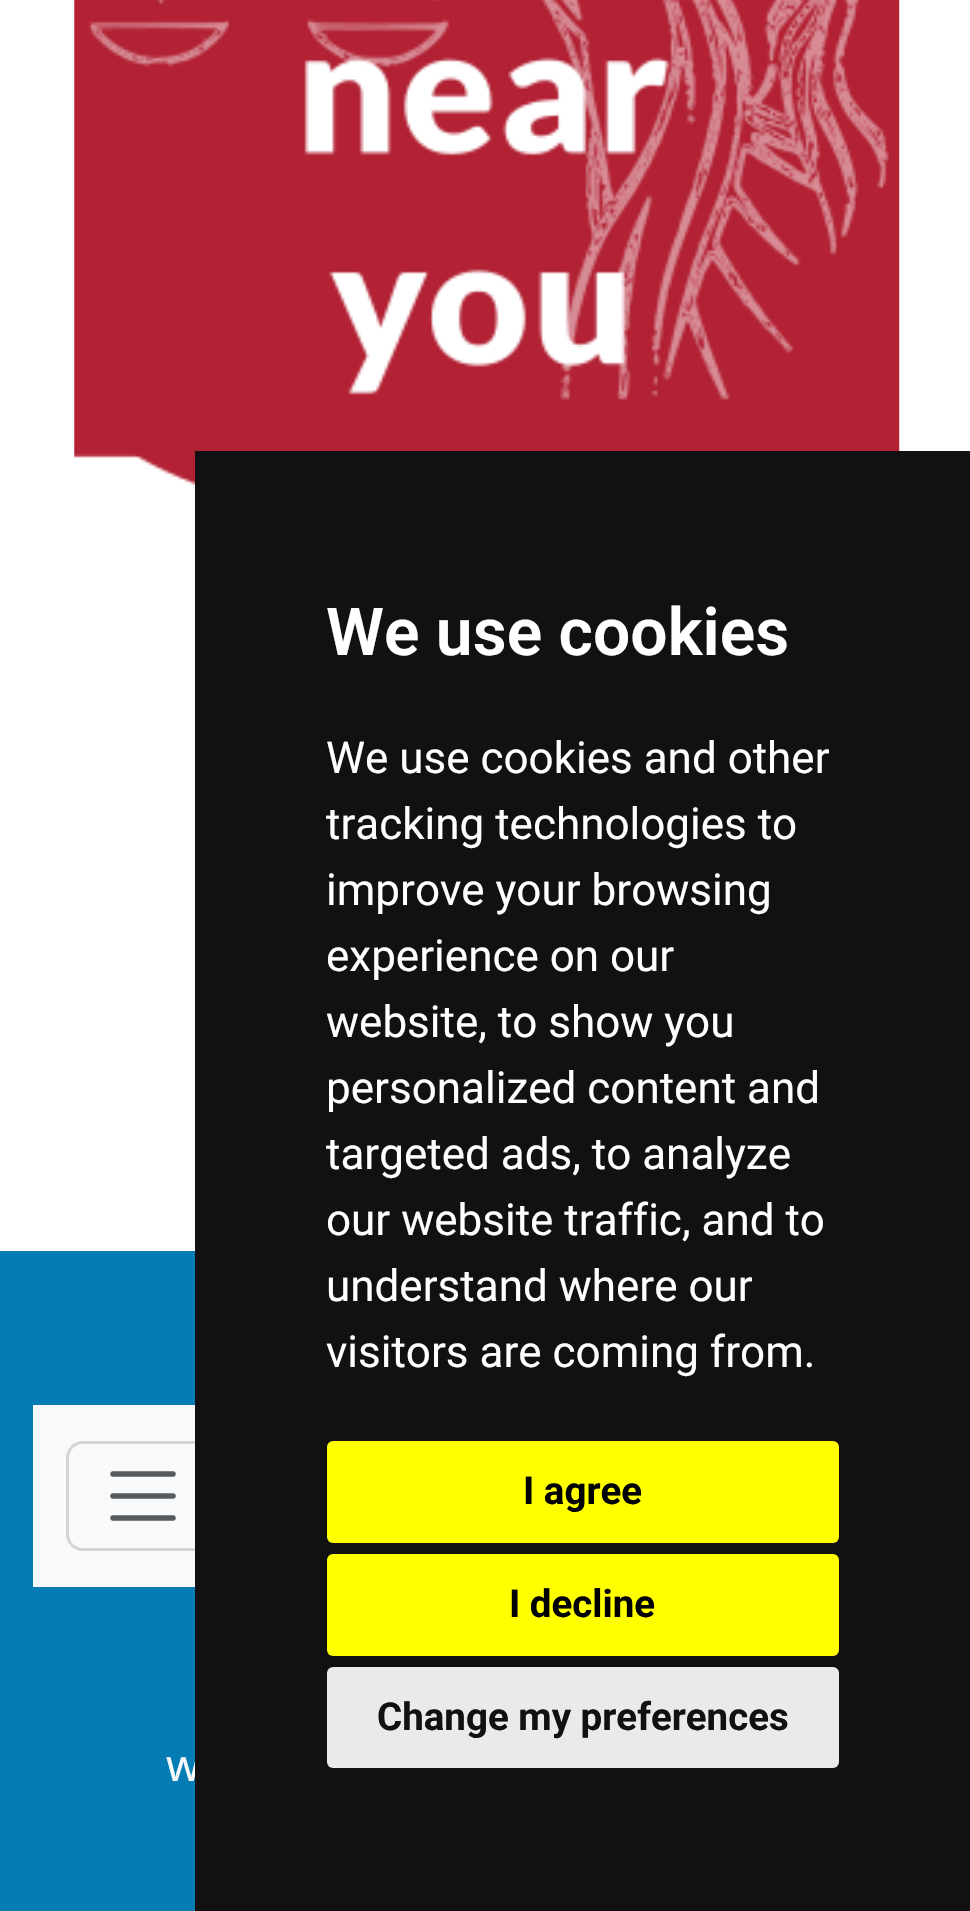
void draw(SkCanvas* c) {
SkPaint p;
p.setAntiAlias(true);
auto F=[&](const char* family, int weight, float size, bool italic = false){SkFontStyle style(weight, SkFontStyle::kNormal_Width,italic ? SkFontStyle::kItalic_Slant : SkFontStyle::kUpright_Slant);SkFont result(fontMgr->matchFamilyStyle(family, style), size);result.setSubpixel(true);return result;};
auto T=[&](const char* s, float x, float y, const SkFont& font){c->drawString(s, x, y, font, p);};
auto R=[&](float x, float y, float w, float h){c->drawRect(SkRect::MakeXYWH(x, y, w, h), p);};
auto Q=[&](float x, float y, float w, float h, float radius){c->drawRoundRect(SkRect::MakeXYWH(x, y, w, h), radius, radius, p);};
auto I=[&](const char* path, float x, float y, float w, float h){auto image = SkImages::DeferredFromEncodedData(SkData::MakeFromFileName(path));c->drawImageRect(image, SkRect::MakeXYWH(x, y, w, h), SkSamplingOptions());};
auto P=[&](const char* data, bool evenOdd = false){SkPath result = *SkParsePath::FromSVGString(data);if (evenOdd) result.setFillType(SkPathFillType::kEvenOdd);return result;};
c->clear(0xffffffff);
I("1.png",74,0,826,486);
p.setColor(0xff067cb4);
R(0,1251,195,660);
p.setColor(0xfff8f9fa);
R(33,1405,162,182);
p.setStroke(true);
p.setStrokeWidth(3);
p.setColor(0xffd3d4d5);
c->drawRoundRect(SkRect::MakeXYWH(67.5,1442.5,151,107),15.5,15.5,p);
auto f1 = F("Noto Sans",400,44);
p.setStroke(false);
p.setColor(0xfff8f9fa);
T("w",166,1781,f1);
p.setColor(0xff111111);
R(195,451,775,1460);
auto f2 = F("Roboto",600,66);
p.setColor(0xffffffff);
T("We use cookies",326,655,f2);
auto f3 = F("Roboto",400,44);
T("We use cookies and other",326,773,f3);
T("tracking technologies to",326,839,f3);
T("improve your browsing",326,905,f3);
T("experience on our",326,971,f3);
T("website, to show you",326,1037,f3);
T("personalized content and",326,1103,f3);
T("targeted ads, to analyze",326,1169,f3);
T("our website traffic, and to",326,1235,f3);
T("understand where our",326,1301,f3);
T("visitors are coming from.",326,1367,f3);
p.setColor(0xffffff00);
Q(327,1441,512,102,6);
auto f4 = F("Roboto",700,38.5);
p.setColor(0xff000000);
T("I agree",523,1504,f4);
p.setColor(0xffffff00);
Q(327,1554,512,102,6);
p.setColor(0xff000000);
T("I decline",509,1617,f4);
p.setColor(0xffeaeaea);
Q(327,1667,512,101,6);
p.setColor(0xff111111);
T("Change my preferences",377,1730,f4);
p.setStroke(true);
p.setStrokeWidth(5.5);
p.setStrokeCap(SkPaint::kRound_Cap);
p.setColor(0xff575a5d);
c->drawPath(P("M113 1474h60m-60 22h60m-60 22h60"),p);
}
